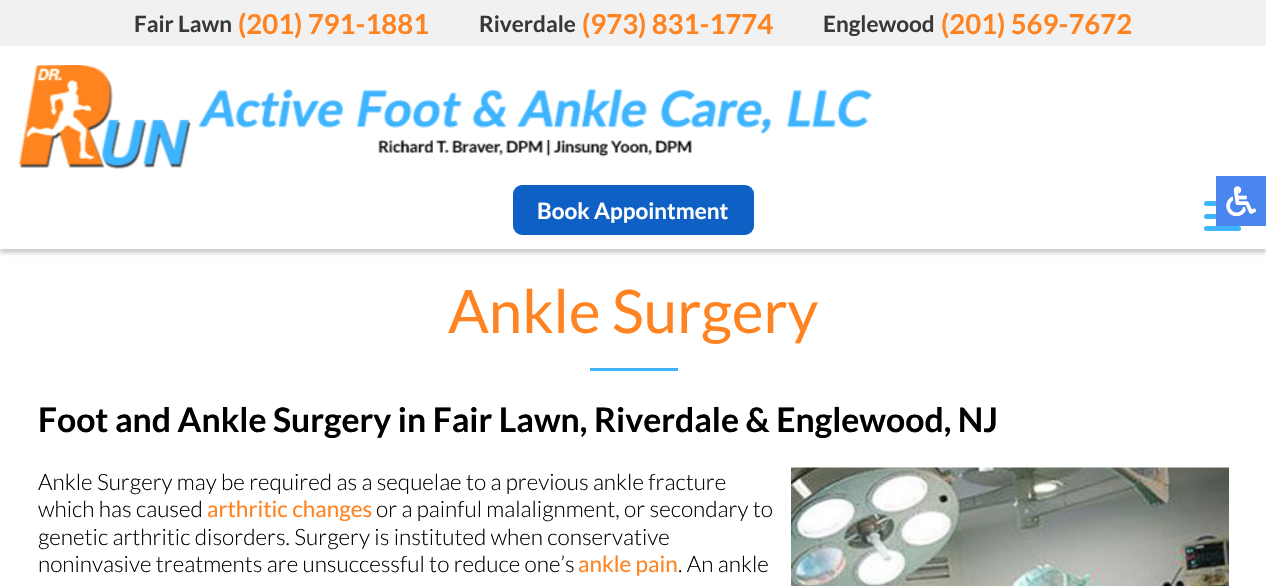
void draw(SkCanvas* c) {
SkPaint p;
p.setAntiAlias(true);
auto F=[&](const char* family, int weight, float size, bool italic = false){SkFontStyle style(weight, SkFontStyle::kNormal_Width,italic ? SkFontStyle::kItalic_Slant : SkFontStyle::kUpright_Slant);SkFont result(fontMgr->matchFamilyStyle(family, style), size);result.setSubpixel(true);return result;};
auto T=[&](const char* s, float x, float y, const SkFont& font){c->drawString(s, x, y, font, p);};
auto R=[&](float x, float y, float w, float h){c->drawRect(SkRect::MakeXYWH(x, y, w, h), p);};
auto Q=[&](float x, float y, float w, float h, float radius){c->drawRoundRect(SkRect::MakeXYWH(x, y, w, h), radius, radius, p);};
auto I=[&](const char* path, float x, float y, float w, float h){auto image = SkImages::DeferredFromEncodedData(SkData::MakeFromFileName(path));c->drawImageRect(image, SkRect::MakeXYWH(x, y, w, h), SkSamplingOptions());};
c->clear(0xffffffff);
p.setColor(0x33000000);
p.setMaskFilter(SkMaskFilter::MakeBlur(kNormal_SkBlurStyle, 2));
c->drawRect(SkRect::MakeXYWH(0,4,1266,249),p);
p.setMaskFilter(nullptr);
p.setColor(0xffffffff);
R(0,46,1266,203);
p.setColor(0xfff1f1f1);
R(0,0,1266,46);
auto f1 = F("Lato",700,22.5);
p.setColor(0xff383838);
T("Fair Lawn",134,32,f1);
auto f2 = F("Lato",700,27.5);
p.setColor(0xffff8320);
T("(201) 791-1881",238,34,f2);
p.setColor(0xff383838);
T("Riverdale",479,32,f1);
p.setColor(0xffff8320);
T("(973) 831-1774",582,34,f2);
p.setColor(0xff383838);
T("Englewood",823,32,f1);
p.setColor(0xffff8320);
T("(201) 569-7672",941,34,f2);
I("1.png",19,65,172,104);
I("2.png",198,88,674,69);
p.setColor(0xff0f60c5);
c->drawRoundRect(SkRect::MakeXYWH(514.5,186.5,238,47),7.5,7.5,p);
p.setStroke(true);
p.setStrokeWidth(3);
c->drawRoundRect(SkRect::MakeXYWH(514.5,186.5,238,47),7.5,7.5,p);
p.setStroke(false);
p.setColor(0xffffffff);
T("Book Appointment",537,219,f1);
p.setColor(0xff3eb4ff);
Q(1204,201,37,5,2.5);
Q(1204,214,37,5,2.5);
Q(1204,226,37,5,2.5);
p.setColor(0xff4885ed);
R(1216,176,50,50);
I("3.png",1226,186,30,30);
auto f3 = F("Lato",400,60);
p.setColor(0xffff8320);
T("Ankle Surgery",448,333,f3);
p.setColor(0xff3eb4ff);
R(590,368,88,3);
auto f4 = F("Lato",700,33.75);
p.setColor(0xff000000);
T("Foot and Ankle Surgery in Fair Lawn, Riverdale & Englewood, NJ",38,432,f4);
auto f5 = F("Lato",300,22.5);
T("Ankle Surgery may be required as a sequelae to a previous ankle fracture",38,490,f5);
I("4.png",791,467,438,119);
T("which has caused",38,517,f5);
auto f6 = F("Lato",400,22.5);
p.setColor(0xffff8320);
T("arthritic changes",207,517,f6);
p.setColor(0xff000000);
T("or a painful malalignment, or secondary to",376,517,f5);
T("genetic arthritic disorders. Surgery is instituted when conservative",38,545,f5);
T("noninvasive treatments are unsuccessful to reduce one’s",38,572,f5);
p.setColor(0xffff8320);
T("ankle pain",578,572,f6);
p.setColor(0xff000000);
T(". An ankle",678,572,f5);
}
